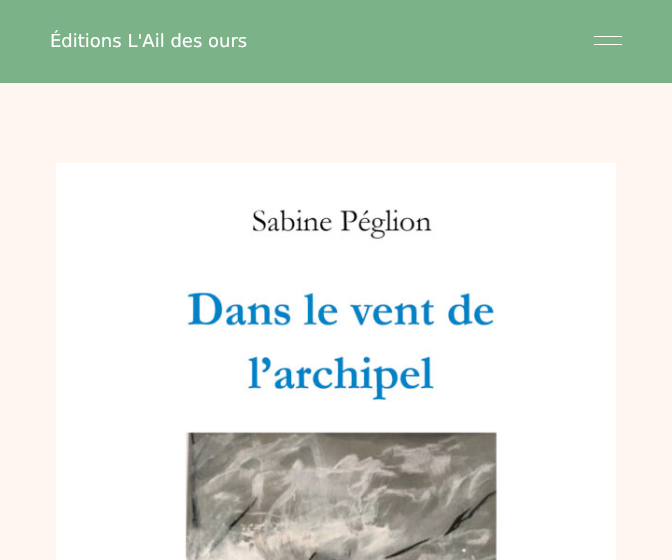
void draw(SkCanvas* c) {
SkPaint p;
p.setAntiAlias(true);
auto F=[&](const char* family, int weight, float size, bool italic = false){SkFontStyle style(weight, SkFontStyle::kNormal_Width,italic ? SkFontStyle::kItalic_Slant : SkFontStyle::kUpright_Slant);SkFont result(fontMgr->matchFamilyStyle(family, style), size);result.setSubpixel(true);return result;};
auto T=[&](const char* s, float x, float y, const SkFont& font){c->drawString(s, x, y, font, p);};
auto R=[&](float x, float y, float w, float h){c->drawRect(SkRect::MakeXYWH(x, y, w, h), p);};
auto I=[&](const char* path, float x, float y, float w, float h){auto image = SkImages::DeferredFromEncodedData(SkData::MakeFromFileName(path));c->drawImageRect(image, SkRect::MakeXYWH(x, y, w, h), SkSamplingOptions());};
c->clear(0xfffff6f2);
p.setColor(0xff7bb288);
R(0,0,672,83);
auto f1 = F("DejaVu Sans",400,18);
p.setColor(0xffffffff);
T("Éditions L'Ail des ours",50,47,f1);
R(594,36,28,1);
R(594,44,28,1);
I("1.png",56,163,560,397);
}
